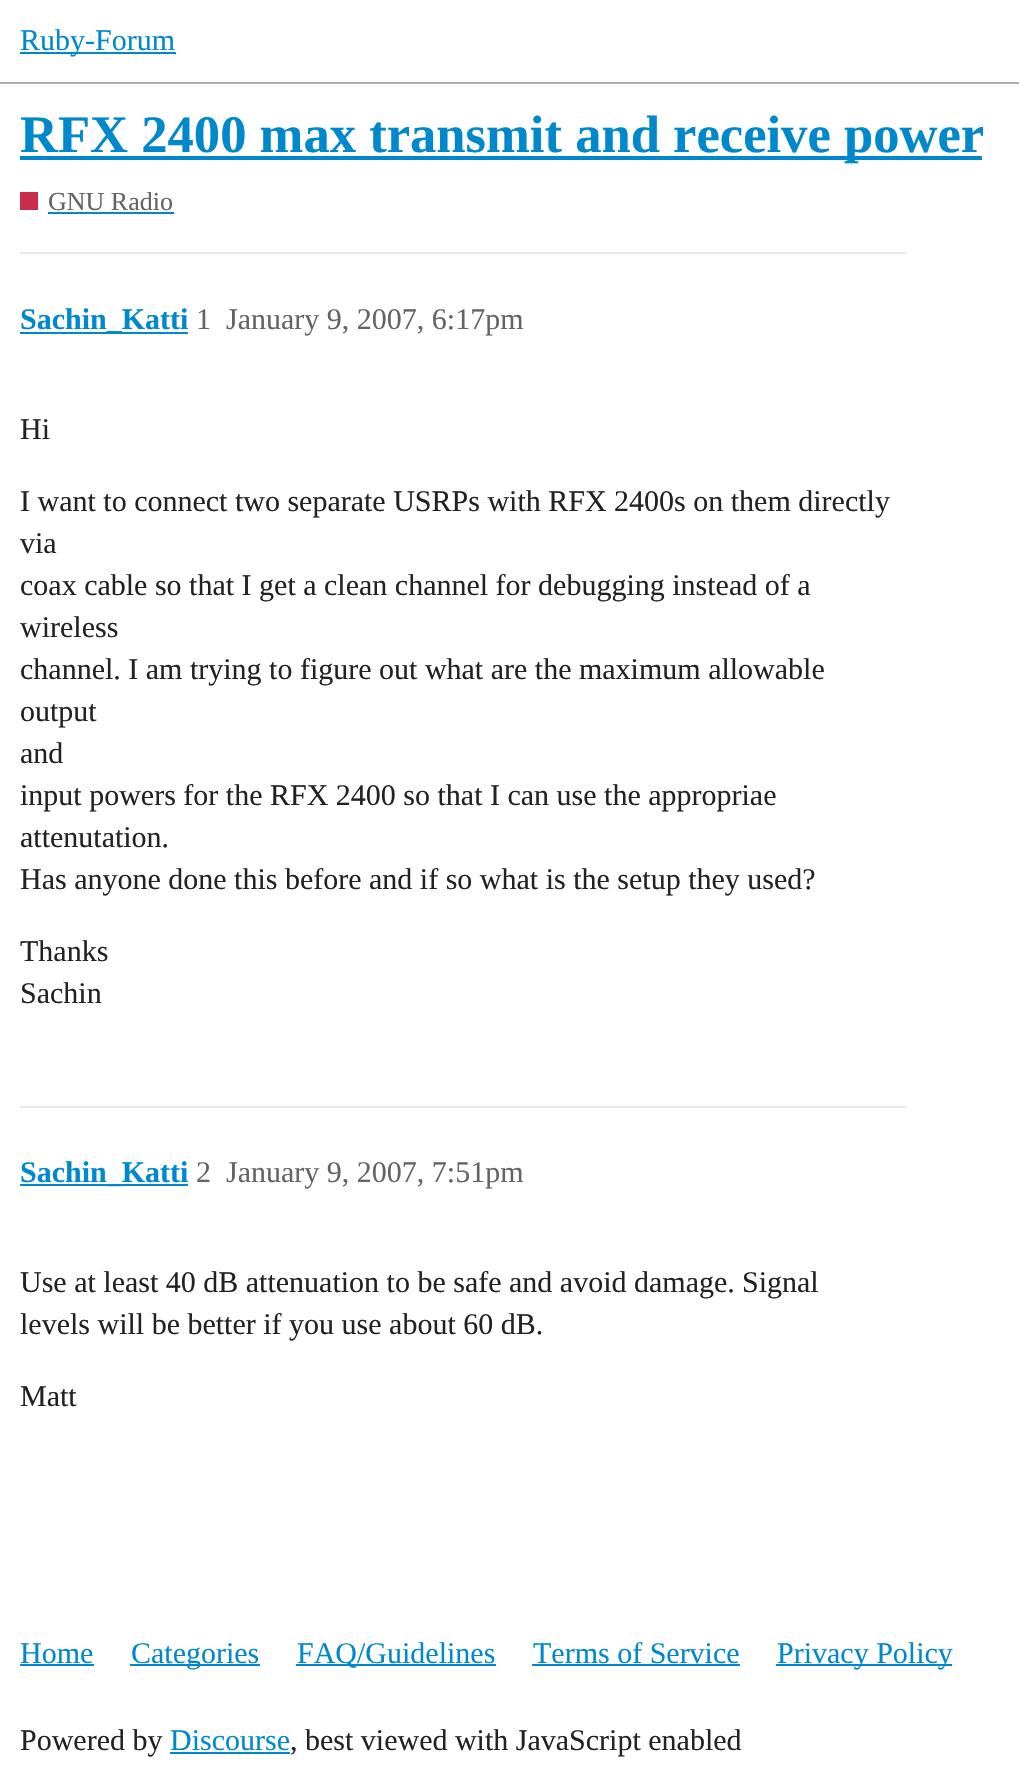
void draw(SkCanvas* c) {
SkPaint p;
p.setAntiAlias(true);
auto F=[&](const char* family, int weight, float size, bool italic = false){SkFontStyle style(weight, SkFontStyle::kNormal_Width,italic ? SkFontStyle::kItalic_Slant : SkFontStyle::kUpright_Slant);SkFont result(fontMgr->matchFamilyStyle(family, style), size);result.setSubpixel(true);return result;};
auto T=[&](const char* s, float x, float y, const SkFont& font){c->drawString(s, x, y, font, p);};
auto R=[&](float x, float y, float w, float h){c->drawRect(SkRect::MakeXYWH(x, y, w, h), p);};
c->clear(0xffffffff);
p.setColor(0xffafafaf);
R(0,82,1019,2);
p.setColor(0xff0088cc);
R(20,52,156,2);
auto f1 = F("Liberation Serif",400,30);
T("Ruby-Forum",20,50,f1);
R(20,156,962,4);
auto f2 = F("Liberation Serif",700,52.6);
T("RFX 2400 max transmit and receive power",20,152,f2);
p.setColor(0xffc82d4b);
R(20,192,18,18);
auto f3 = F("Liberation Serif",400,26);
p.setColor(0xff646464);
T("GNU Radio",48,210,f3);
p.setColor(0xff0088cc);
R(48,212,126,2);
p.setColor(0xffe9e9e9);
R(20,252,886,2);
p.setColor(0xff0088cc);
R(20,332,168,2);
auto f4 = F("Liberation Serif",700,30);
T("Sachin_Katti",20,329,f4);
p.setColor(0xff646464);
T("1",196,329,f1);
T("January 9, 2007, 6:17pm",226,329,f1);
p.setColor(0xff222222);
T("Hi",20,439,f1);
T("I want to connect two separate USRPs with RFX 2400s on them directly",20,511,f1);
T("via",20,553,f1);
T("coax cable so that I get a clean channel for debugging instead of a",20,595,f1);
T("wireless",20,637,f1);
T("channel. I am trying to figure out what are the maximum allowable",20,679,f1);
T("output",20,721,f1);
T("and",20,763,f1);
T("input powers for the RFX 2400 so that I can use the appropriae",20,805,f1);
T("attenutation.",20,847,f1);
T("Has anyone done this before and if so what is the setup they used?",20,889,f1);
T("Thanks",20,961,f1);
T("Sachin",20,1003,f1);
p.setColor(0xffe9e9e9);
R(20,1106,886,2);
p.setColor(0xff0088cc);
R(20,1184,168,2);
T("Sachin_Katti",20,1182,f4);
p.setColor(0xff646464);
T("2",196,1182,f1);
T("January 9, 2007, 7:51pm",226,1182,f1);
p.setColor(0xff222222);
T("Use at least 40 dB attenuation to be safe and avoid damage.",20,1292,f1);
T("Signal",742,1292,f1);
T("levels will be better if you use about 60 dB.",20,1334,f1);
T("Matt",20,1406,f1);
p.setColor(0xff0088cc);
T("Home",20,1663,f1);
R(20,1664,74,2);
R(130,1664,130,2);
T("Categories",131,1663,f1);
R(296,1664,200,2);
T("FAQ/Guidelines",297,1663,f1);
T("Terms of Service",533,1663,f1);
R(532,1664,208,2);
R(776,1664,176,2);
T("Privacy Policy",777,1663,f1);
p.setColor(0xff222222);
T("Powered by",20,1750,f1);
p.setColor(0xff0088cc);
T("Discourse",170,1750,f1);
R(170,1752,120,2);
p.setColor(0xff222222);
T(", best viewed with JavaScript enabled",290,1750,f1);
}
